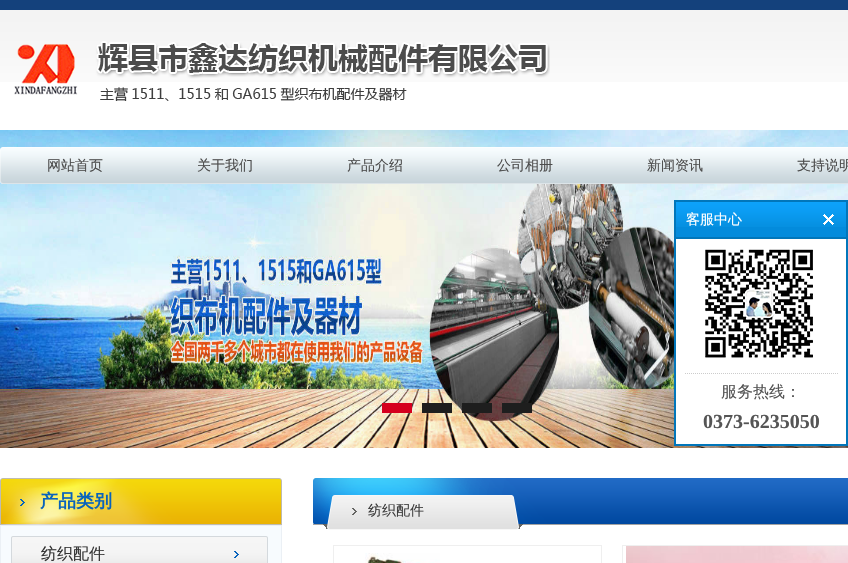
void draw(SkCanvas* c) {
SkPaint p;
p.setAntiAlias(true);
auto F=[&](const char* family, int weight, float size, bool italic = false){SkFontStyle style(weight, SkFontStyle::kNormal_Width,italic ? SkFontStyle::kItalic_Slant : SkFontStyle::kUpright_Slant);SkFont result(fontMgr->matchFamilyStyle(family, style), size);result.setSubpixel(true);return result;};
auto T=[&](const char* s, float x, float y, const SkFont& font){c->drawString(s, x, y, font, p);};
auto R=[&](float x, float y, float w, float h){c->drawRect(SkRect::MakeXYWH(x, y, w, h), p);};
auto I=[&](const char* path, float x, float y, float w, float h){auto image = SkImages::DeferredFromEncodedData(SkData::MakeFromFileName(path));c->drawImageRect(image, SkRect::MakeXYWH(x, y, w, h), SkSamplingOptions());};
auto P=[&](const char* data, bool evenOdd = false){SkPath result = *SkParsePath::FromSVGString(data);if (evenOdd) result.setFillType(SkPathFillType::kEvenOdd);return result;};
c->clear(0xffffffff);
I("1.png",0,10,848,72);
p.setColor(0xff14417c);
R(0,0,848,10);
I("2.png",14,41,536,60);
I("3.png",0,130,848,318);
p.setColor(0xffd5001e);
R(382,403,30,10);
p.setColor(0xff1e1e1e);
R(422,403,30,10);
R(462,403,30,10);
R(502,403,30,10);
I("4.png",0,147,848,37);
auto f1 = F("WenQuanYi Zen Hei",500,14);
p.setColor(0xff4c4c4c);
T("网站首页",47,170,f1);
T("关于我们",197,170,f1);
T("产品介绍",347,170,f1);
T("公司相册",497,170,f1);
T("新闻资讯",647,170,f1);
T("支持说明",797,170,f1);
p.setColor(0xffffffff);
R(676,239,170,205);
p.setStroke(true);
p.setStrokeWidth(2);
p.setColor(0xff0176ba);
c->drawRect(SkRect::MakeXYWH(675,201,172,244),p);
p.setStroke(false);
p.setColor(0xff038bdc);
R(676,227,170,10);
I("5.png",676,202,170,25);
p.setColor(0xff0176ba);
R(676,237,170,2);
p.setColor(0xffffffff);
T("客服中心",686,224,f1);
I("6.png",823,214,11,11);
I("7.png",705,249,108,109);
p.setStroke(true);
p.setStrokeWidth(1);
p.setColor(0xffcccccc);
p.setPathEffect(SkDashPathEffect::Make({{1,1}}, 0));
c->drawPath(P("M685 373.5h153"),p);
p.setPathEffect(nullptr);
auto f2 = F("WenQuanYi Zen Hei",500,16);
p.setStroke(false);
p.setColor(0xff555555);
T("服务热线：",721,397,f2);
auto f3 = F("Liberation Serif",700,20);
T("0373-6235050",703,428,f3);
I("8.png",0,478,282,47);
auto f4 = F("WenQuanYi Zen Hei",700,18);
p.setColor(0xff0863bc);
T("产品类别",40,507,f4);
p.setColor(0xfff7fbfe);
c->drawRect(SkRect::MakeXYWH(.5,525.5,281,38),p);
p.setStroke(true);
p.setColor(0xffebf0f5);
c->drawRect(SkRect::MakeXYWH(.5,525.5,281,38),p);
I("9.png",11,536,257,27);
p.setStroke(false);
p.setColor(0xff333333);
T("纺织配件",41,559,f2);
I("10.png",313,478,535,47);
I("11.png",323,495,200,35);
p.setColor(0xff3c3c3c);
T("纺织配件",368,515,f1);
p.setStroke(true);
p.setColor(0xffefefef);
c->drawRect(SkRect::MakeXYWH(333.5,545.5,268,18),p);
I("12.png",365,553,75,10);
c->drawRect(SkRect::MakeXYWH(622.5,545.5,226,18),p);
I("13.png",626,546,222,17);
}
